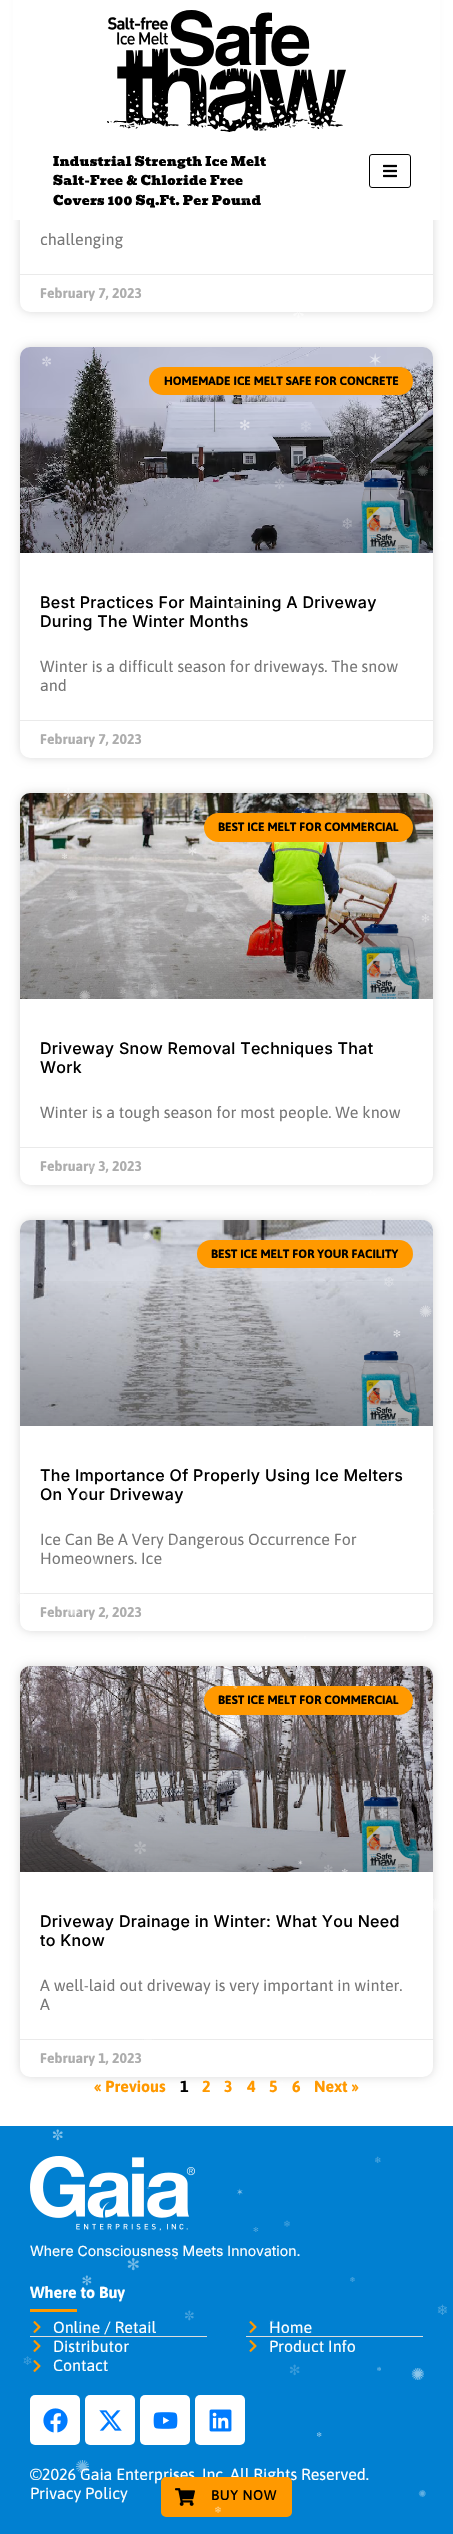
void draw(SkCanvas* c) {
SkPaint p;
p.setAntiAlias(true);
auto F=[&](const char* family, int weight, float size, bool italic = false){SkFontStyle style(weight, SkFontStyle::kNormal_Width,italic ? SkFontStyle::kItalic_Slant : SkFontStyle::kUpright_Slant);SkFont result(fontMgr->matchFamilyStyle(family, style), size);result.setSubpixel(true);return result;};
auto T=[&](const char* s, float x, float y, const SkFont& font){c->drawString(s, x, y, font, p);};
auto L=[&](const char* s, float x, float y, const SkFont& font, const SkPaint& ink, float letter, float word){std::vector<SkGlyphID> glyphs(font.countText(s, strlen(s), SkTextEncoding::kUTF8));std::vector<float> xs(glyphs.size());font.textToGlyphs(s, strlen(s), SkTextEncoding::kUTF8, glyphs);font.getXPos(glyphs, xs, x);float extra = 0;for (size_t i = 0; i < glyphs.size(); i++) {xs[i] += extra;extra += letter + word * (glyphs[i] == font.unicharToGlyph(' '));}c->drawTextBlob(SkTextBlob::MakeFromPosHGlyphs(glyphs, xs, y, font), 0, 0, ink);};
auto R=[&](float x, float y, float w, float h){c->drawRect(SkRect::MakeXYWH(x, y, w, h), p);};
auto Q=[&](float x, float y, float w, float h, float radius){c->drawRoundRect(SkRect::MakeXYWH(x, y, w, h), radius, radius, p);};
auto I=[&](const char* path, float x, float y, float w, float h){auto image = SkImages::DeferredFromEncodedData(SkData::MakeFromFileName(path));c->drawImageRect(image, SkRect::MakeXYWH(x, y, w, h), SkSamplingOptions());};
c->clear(0xffffffff);
p.setColor(0x26000000);
p.setMaskFilter(SkMaskFilter::MakeBlur(kNormal_SkBlurStyle, 5));
c->drawRoundRect(SkRect::MakeXYWH(20,-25,413,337),10,10,p);
p.setMaskFilter(nullptr);
p.setColor(0xffffffff);
Q(20,-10,413,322,10);
R(13,0,427,220);
I("1.png",107,10,239,122);
auto f1 = F("Bevan",400,13);
p.setColor(0xff000000);
L("Industrial Strength Ice Melt",53,166,f1,p,.3,0);
L("Salt-Free & Chloride Free",53,185,f1,p,.3,0);
L("Covers 100 Sq.Ft. Per Pound",53,205,f1,p,.3,0);
p.setStroke(true);
p.setStrokeWidth(1);
c->drawRoundRect(SkRect::MakeXYWH(369.5,154.5,41,33),2.5,2.5,p);
I("2.png",383,164,14,14);
auto f2 = F("Asap",400,16);
p.setStroke(false);
p.setColor(0xff777777);
T("challenging",40,245,f2);
p.setColor(0xffeaeaea);
R(20,274,413,1);
auto f3 = F("Asap",700,14);
p.setColor(0xffadadad);
T("February 7, 2023",40,298,f3);
p.setColor(0x26000000);
p.setMaskFilter(SkMaskFilter::MakeBlur(kNormal_SkBlurStyle, 5));
c->drawRoundRect(SkRect::MakeXYWH(20,347,413,411),10,10,p);
p.setMaskFilter(nullptr);
p.setColor(0xffffffff);
Q(20,347,413,411,10);
I("4.png",20,347,413,206);
{
const SkColor colors[] = {0x59000000,0x00000000};
const float stops[] = {0,.75};
const SkPoint ends[] = {{227,553}, {227,347}};
p.setShader(SkGradientShader::MakeLinear(ends, colors, stops, 2, SkTileMode::kClamp));
p.setAlpha(255);
}
R(20,408,413,145);
p.setShader(nullptr);
p.setColor(0xffff9900);
Q(149,367,264,28,14);
auto f4 = F("Asap",700,12);
p.setColor(0xff000000);
T("HOMEMADE ICE MELT SAFE FOR CONCRETE",164,385,f4);
auto f5 = F("Inter",500,16);
L("Best Practices For Maintaining A Driveway",40,608,f5,p,.3,0);
L("During The Winter Months",40,627,f5,p,.3,0);
p.setColor(0xff777777);
T("Winter is a difficult season for driveways. The snow",40,672,f2);
T("and",40,691,f2);
p.setColor(0xffeaeaea);
R(20,720,413,1);
p.setColor(0xffadadad);
T("February 7, 2023",40,744,f3);
p.setColor(0x26000000);
p.setMaskFilter(SkMaskFilter::MakeBlur(kNormal_SkBlurStyle, 5));
c->drawRoundRect(SkRect::MakeXYWH(20,793,413,392),10,10,p);
p.setMaskFilter(nullptr);
p.setColor(0xffffffff);
Q(20,793,413,392,10);
I("5.png",20,793,413,206);
{
const SkColor colors[] = {0x59000000,0x00000000};
const float stops[] = {0,.75};
const SkPoint ends[] = {{227,999}, {227,793}};
p.setShader(SkGradientShader::MakeLinear(ends, colors, stops, 2, SkTileMode::kClamp));
p.setAlpha(255);
}
R(20,854,413,145);
p.setShader(nullptr);
p.setColor(0xffff9900);
Q(204,813,209,29,14.5);
p.setColor(0xff000000);
T("BEST ICE MELT FOR COMMERCIAL",218,831,f4);
L("Driveway Snow Removal Techniques That",40,1054,f5,p,.3,0);
L("Work",40,1073,f5,p,.3,0);
p.setColor(0xff777777);
T("Winter is a tough season for most people. We know",40,1118,f2);
p.setColor(0xffeaeaea);
R(20,1147,413,1);
p.setColor(0xffadadad);
T("February 3, 2023",40,1171,f3);
p.setColor(0x26000000);
p.setMaskFilter(SkMaskFilter::MakeBlur(kNormal_SkBlurStyle, 5));
c->drawRoundRect(SkRect::MakeXYWH(20,1220,413,411),10,10,p);
p.setMaskFilter(nullptr);
p.setColor(0xffffffff);
Q(20,1220,413,411,10);
I("6.png",20,1220,413,206);
{
const SkColor colors[] = {0x59000000,0x00000000};
const float stops[] = {0,.75};
const SkPoint ends[] = {{227,1426}, {227,1220}};
p.setShader(SkGradientShader::MakeLinear(ends, colors, stops, 2, SkTileMode::kClamp));
p.setAlpha(255);
}
R(20,1281,413,145);
p.setShader(nullptr);
p.setColor(0xffff9900);
Q(197,1240,216,28,14);
p.setColor(0xff000000);
T("BEST ICE MELT FOR YOUR FACILITY",211,1258,f4);
L("The Importance Of Properly Using Ice Melters",40,1481,f5,p,.3,0);
L("On Your Driveway",40,1500,f5,p,.3,0);
p.setColor(0xff777777);
T("Ice Can Be A Very Dangerous Occurrence For",40,1545,f2);
T("Homeowners. Ice",40,1564,f2);
p.setColor(0xffeaeaea);
R(20,1593,413,1);
p.setColor(0xffadadad);
T("February 2, 2023",40,1617,f3);
p.setColor(0x26000000);
p.setMaskFilter(SkMaskFilter::MakeBlur(kNormal_SkBlurStyle, 5));
c->drawRoundRect(SkRect::MakeXYWH(20,1666,413,411),10,10,p);
p.setMaskFilter(nullptr);
p.setColor(0xffffffff);
Q(20,1666,413,411,10);
I("7.png",20,1666,413,206);
{
const SkColor colors[] = {0x59000000,0x00000000};
const float stops[] = {0,.75};
const SkPoint ends[] = {{227,1872}, {227,1666}};
p.setShader(SkGradientShader::MakeLinear(ends, colors, stops, 2, SkTileMode::kClamp));
p.setAlpha(255);
}
R(20,1727,413,145);
p.setShader(nullptr);
p.setColor(0xffff9900);
Q(204,1686,209,29,14.5);
p.setColor(0xff000000);
T("BEST ICE MELT FOR COMMERCIAL",218,1704,f4);
L("Driveway Drainage in Winter: What You Need",40,1927,f5,p,.3,0);
L("to Know",40,1946,f5,p,.3,0);
p.setColor(0xff777777);
T("A well-laid out driveway is very important in winter.",40,1991,f2);
T("A",40,2010,f2);
p.setColor(0xffeaeaea);
R(20,2039,413,1);
p.setColor(0xffadadad);
T("February 1, 2023",40,2063,f3);
auto f6 = F("Asap",700,16);
p.setColor(0xffff9900);
T("« Previous",94,2092,f6);
p.setColor(0xff000000);
T("1",180,2092,f6);
p.setColor(0xffff9900);
T("2",202,2092,f6);
T("3",224,2092,f6);
T("4",247,2092,f6);
T("5",269,2092,f6);
T("6",292,2092,f6);
T("Next »",314,2092,f6);
p.setColor(0xff0180d1);
R(0,2126,453,408);
I("8.png",30,2156,165,75);
auto f7 = F("Inter",400,14);
p.setColor(0xffffffff);
T("Where Consciousness Meets Innovation.",30,2256,f7);
T("Where to Buy",30,2298,f6);
p.setColor(0xffff9900);
R(30,2309,47,3);
I("9.png",33,2321,8,12);
p.setColor(0xffffffff);
T("Online / Retail",53,2333,f2);
p.setColor(0xffdddddd);
R(30,2336,177,1);
I("9.png",33,2340,8,12);
p.setColor(0xffffffff);
T("Distributor",53,2352,f2);
I("9.png",249,2321,8,12);
T("Home",269,2333,f2);
p.setColor(0xffdddddd);
R(246,2336,177,1);
I("9.png",249,2340,8,12);
p.setColor(0xffffffff);
T("Product Info",269,2352,f2);
I("9.png",33,2360,8,12);
T("Contact",53,2371,f2);
Q(30,2395,50,50,5);
I("10.png",43,2408,25,25);
Q(85,2395,50,50,5);
I("11.png",99,2410,23,21);
Q(140,2395,50,50,5);
I("12.png",153,2412,25,17);
Q(195,2395,50,50,5);
I("13.png",209,2409,23,23);
T("©2026 Gaia Enterprises, Inc. All Rights Reserved.",30,2480,f2);
T("Privacy Policy",30,2499,f2);
p.setColor(0xffff9900);
c->drawRoundRect(SkRect::MakeXYWH(162,2478,129,38),4,4,p);
p.setStroke(true);
p.setStrokeWidth(2);
c->drawRoundRect(SkRect::MakeXYWH(162,2478,129,38),4,4,p);
I("14.png",175,2488,20,18);
auto f8 = F("Asap",500,14);
p.setStroke(false);
p.setColor(0xff000000);
L("BUY NOW",211,2500,f8,p,.5,0);
I("3.png",17,198,430,2315);
}
